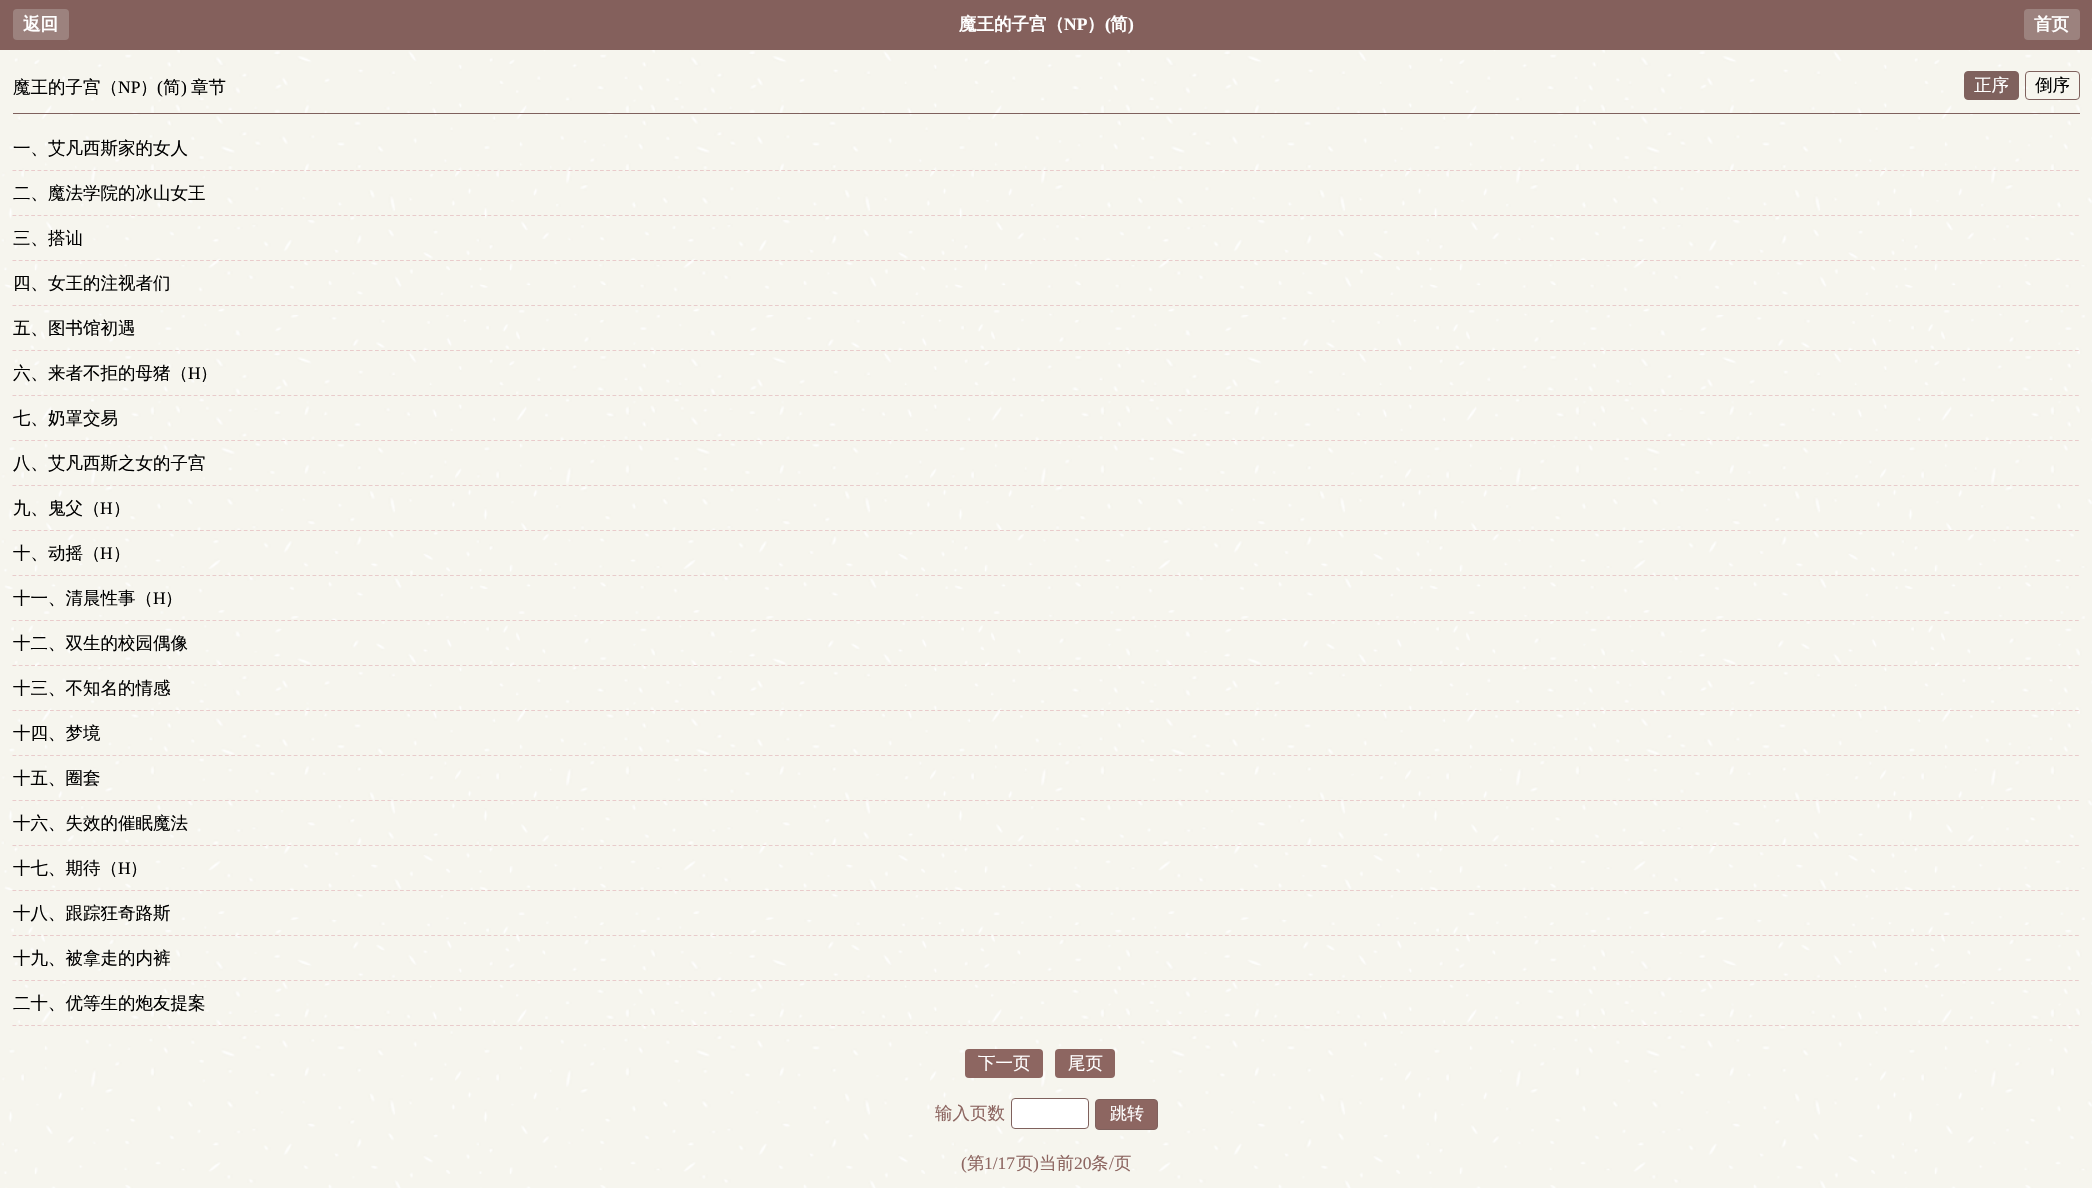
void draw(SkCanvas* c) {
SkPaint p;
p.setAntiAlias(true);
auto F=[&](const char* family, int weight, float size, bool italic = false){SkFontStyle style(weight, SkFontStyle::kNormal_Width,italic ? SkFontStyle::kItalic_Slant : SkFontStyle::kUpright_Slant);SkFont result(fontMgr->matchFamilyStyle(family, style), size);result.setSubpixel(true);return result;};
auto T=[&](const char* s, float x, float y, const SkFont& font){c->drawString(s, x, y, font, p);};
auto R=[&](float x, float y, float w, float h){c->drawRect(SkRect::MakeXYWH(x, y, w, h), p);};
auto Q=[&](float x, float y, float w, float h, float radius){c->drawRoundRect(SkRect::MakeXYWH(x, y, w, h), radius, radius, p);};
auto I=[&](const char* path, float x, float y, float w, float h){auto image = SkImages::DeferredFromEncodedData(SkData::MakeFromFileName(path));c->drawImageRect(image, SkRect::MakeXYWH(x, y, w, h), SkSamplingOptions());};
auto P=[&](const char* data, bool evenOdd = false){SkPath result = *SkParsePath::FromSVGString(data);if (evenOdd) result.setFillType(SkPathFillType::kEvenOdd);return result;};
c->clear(0xffffffff);
I("1.png",0,50,2092,1138);
p.setColor(0xff84605c);
R(0,0,2092,50);
p.setColor(0xff9c827e);
Q(13,9,56,31,4);
auto f1 = F("WenQuanYi Zen Hei",700,17.5);
p.setColor(0xffffffff);
T("返回",23,30,f1);
T("魔王的子宫（",959,30,f1);
auto f2 = F("Liberation Serif",700,17.5);
T("NP",1064,30,f2);
T("）",1087,30,f1);
T("(",1105,30,f2);
T("简",1110,30,f1);
T(")",1128,30,f2);
p.setColor(0xff9c827e);
Q(2024,9,56,31,4);
p.setColor(0xffffffff);
T("首页",2034,30,f1);
p.setColor(0xff7f615d);
R(13,113,2067,1);
auto f3 = F("WenQuanYi Zen Hei",500,17.5);
p.setColor(0xff000000);
T("魔王的子宫（",13,93,f3);
auto f4 = F("Liberation Serif",400,17.5);
T("NP",118,93,f4);
T("）",140,93,f3);
T("(",157,93,f4);
T("简",163,93,f3);
T(")",181,93,f4);
T("章节",191,93,f3);
p.setColor(0xff7f615d);
c->drawRoundRect(SkRect::MakeXYWH(1964.5,71.5,54,28),3.5,3.5,p);
p.setStroke(true);
p.setStrokeWidth(1);
c->drawRoundRect(SkRect::MakeXYWH(1964.5,71.5,54,28),3.5,3.5,p);
p.setStroke(false);
p.setColor(0xffffffff);
T("正序",1974,91,f3);
p.setStroke(true);
p.setColor(0xff7f615d);
c->drawRoundRect(SkRect::MakeXYWH(2025.5,71.5,54,28),3.5,3.5,p);
p.setStroke(false);
p.setColor(0xff000000);
T("倒序",2035,91,f3);
p.setStroke(true);
p.setStrokeWidth(1.2);
p.setColor(0xffe9cbcb);
p.setPathEffect(SkDashPathEffect::Make({{3.75f,2.5f}}, 0));
c->drawPath(P("M12.5 170.5h2067.5"),p);
p.setPathEffect(nullptr);
p.setStroke(false);
p.setColor(0xff000000);
T("一、艾凡西斯家的女人",13,154,f3);
p.setStroke(true);
p.setColor(0xffe9cbcb);
p.setPathEffect(SkDashPathEffect::Make({{3.75f,2.5f}}, 0));
c->drawPath(P("M12.5 215.5h2067.5"),p);
p.setPathEffect(nullptr);
p.setStroke(false);
p.setColor(0xff000000);
T("二、魔法学院的冰山女王",13,199,f3);
p.setStroke(true);
p.setColor(0xffe9cbcb);
p.setPathEffect(SkDashPathEffect::Make({{3.75f,2.5f}}, 0));
c->drawPath(P("M12.5 260.5h2067.5"),p);
p.setPathEffect(nullptr);
p.setStroke(false);
p.setColor(0xff000000);
T("三、搭讪",13,244,f3);
p.setStroke(true);
p.setColor(0xffe9cbcb);
p.setPathEffect(SkDashPathEffect::Make({{3.75f,2.5f}}, 0));
c->drawPath(P("M12.5 305.5h2067.5"),p);
p.setPathEffect(nullptr);
p.setStroke(false);
p.setColor(0xff000000);
T("四、女王的注视者们",13,289,f3);
p.setStroke(true);
p.setColor(0xffe9cbcb);
p.setPathEffect(SkDashPathEffect::Make({{3.75f,2.5f}}, 0));
c->drawPath(P("M12.5 350.5h2067.5"),p);
p.setPathEffect(nullptr);
p.setStroke(false);
p.setColor(0xff000000);
T("五、图书馆初遇",13,334,f3);
p.setStroke(true);
p.setColor(0xffe9cbcb);
p.setPathEffect(SkDashPathEffect::Make({{3.75f,2.5f}}, 0));
c->drawPath(P("M12.5 395.5h2067.5"),p);
p.setPathEffect(nullptr);
p.setStroke(false);
p.setColor(0xff000000);
T("六、来者不拒的母猪（",13,379,f3);
T("H",188,379,f4);
T("）",200,379,f3);
p.setStroke(true);
p.setColor(0xffe9cbcb);
p.setPathEffect(SkDashPathEffect::Make({{3.75f,2.5f}}, 0));
c->drawPath(P("M12.5 440.5h2067.5"),p);
p.setPathEffect(nullptr);
p.setStroke(false);
p.setColor(0xff000000);
T("七、奶罩交易",13,424,f3);
p.setStroke(true);
p.setColor(0xffe9cbcb);
p.setPathEffect(SkDashPathEffect::Make({{3.75f,2.5f}}, 0));
c->drawPath(P("M12.5 485.5h2067.5"),p);
p.setPathEffect(nullptr);
p.setStroke(false);
p.setColor(0xff000000);
T("八、艾凡西斯之女的子宫",13,469,f3);
p.setStroke(true);
p.setColor(0xffe9cbcb);
p.setPathEffect(SkDashPathEffect::Make({{3.75f,2.5f}}, 0));
c->drawPath(P("M12.5 530.5h2067.5"),p);
p.setPathEffect(nullptr);
p.setStroke(false);
p.setColor(0xff000000);
T("九、鬼父（",13,514,f3);
T("H",100,514,f4);
T("）",113,514,f3);
p.setStroke(true);
p.setColor(0xffe9cbcb);
p.setPathEffect(SkDashPathEffect::Make({{3.75f,2.5f}}, 0));
c->drawPath(P("M12.5 575.5h2067.5"),p);
p.setPathEffect(nullptr);
p.setStroke(false);
p.setColor(0xff000000);
T("十、动摇（",13,559,f3);
T("H",100,559,f4);
T("）",113,559,f3);
p.setStroke(true);
p.setColor(0xffe9cbcb);
p.setPathEffect(SkDashPathEffect::Make({{3.75f,2.5f}}, 0));
c->drawPath(P("M12.5 620.5h2067.5"),p);
p.setPathEffect(nullptr);
p.setStroke(false);
p.setColor(0xff000000);
T("十一、清晨性事（",13,604,f3);
T("H",153,604,f4);
T("）",165,604,f3);
p.setStroke(true);
p.setColor(0xffe9cbcb);
p.setPathEffect(SkDashPathEffect::Make({{3.75f,2.5f}}, 0));
c->drawPath(P("M12.5 665.5h2067.5"),p);
p.setPathEffect(nullptr);
p.setStroke(false);
p.setColor(0xff000000);
T("十二、双生的校园偶像",13,649,f3);
p.setStroke(true);
p.setColor(0xffe9cbcb);
p.setPathEffect(SkDashPathEffect::Make({{3.75f,2.5f}}, 0));
c->drawPath(P("M12.5 710.5h2067.5"),p);
p.setPathEffect(nullptr);
p.setStroke(false);
p.setColor(0xff000000);
T("十三、不知名的情感",13,694,f3);
p.setStroke(true);
p.setColor(0xffe9cbcb);
p.setPathEffect(SkDashPathEffect::Make({{3.75f,2.5f}}, 0));
c->drawPath(P("M12.5 755.5h2067.5"),p);
p.setPathEffect(nullptr);
p.setStroke(false);
p.setColor(0xff000000);
T("十四、梦境",13,739,f3);
p.setStroke(true);
p.setColor(0xffe9cbcb);
p.setPathEffect(SkDashPathEffect::Make({{3.75f,2.5f}}, 0));
c->drawPath(P("M12.5 800.5h2067.5"),p);
p.setPathEffect(nullptr);
p.setStroke(false);
p.setColor(0xff000000);
T("十五、圈套",13,784,f3);
p.setStroke(true);
p.setColor(0xffe9cbcb);
p.setPathEffect(SkDashPathEffect::Make({{3.75f,2.5f}}, 0));
c->drawPath(P("M12.5 845.5h2067.5"),p);
p.setPathEffect(nullptr);
p.setStroke(false);
p.setColor(0xff000000);
T("十六、失效的催眠魔法",13,829,f3);
p.setStroke(true);
p.setColor(0xffe9cbcb);
p.setPathEffect(SkDashPathEffect::Make({{3.75f,2.5f}}, 0));
c->drawPath(P("M12.5 890.5h2067.5"),p);
p.setPathEffect(nullptr);
p.setStroke(false);
p.setColor(0xff000000);
T("十七、期待（",13,874,f3);
T("H",118,874,f4);
T("）",130,874,f3);
p.setStroke(true);
p.setColor(0xffe9cbcb);
p.setPathEffect(SkDashPathEffect::Make({{3.75f,2.5f}}, 0));
c->drawPath(P("M12.5 935.5h2067.5"),p);
p.setPathEffect(nullptr);
p.setStroke(false);
p.setColor(0xff000000);
T("十八、跟踪狂奇路斯",13,919,f3);
p.setStroke(true);
p.setColor(0xffe9cbcb);
p.setPathEffect(SkDashPathEffect::Make({{3.75f,2.5f}}, 0));
c->drawPath(P("M12.5 980.5h2067.5"),p);
p.setPathEffect(nullptr);
p.setStroke(false);
p.setColor(0xff000000);
T("十九、被拿走的内裤",13,964,f3);
p.setStroke(true);
p.setColor(0xffe9cbcb);
p.setPathEffect(SkDashPathEffect::Make({{3.75f,2.5f}}, 0));
c->drawPath(P("M12.5 1025.5h2067.5"),p);
p.setPathEffect(nullptr);
p.setStroke(false);
p.setColor(0xff000000);
T("二十、优等生的炮友提案",13,1009,f3);
p.setColor(0xff8d6661);
Q(965,1049,78,29,4);
p.setColor(0xffffffff);
T("下一页",978,1069,f3);
p.setColor(0xff8d6661);
Q(1055,1049,60,29,4);
p.setColor(0xffffffff);
T("尾页",1068,1069,f3);
p.setColor(0xff8d6661);
T("输入页数",935,1119,f3);
p.setColor(0xffffffff);
c->drawRoundRect(SkRect::MakeXYWH(1011.5,1098.5,77,30),3.5,3.5,p);
p.setStroke(true);
p.setStrokeWidth(1);
p.setColor(0xff7f615d);
c->drawRoundRect(SkRect::MakeXYWH(1011.5,1098.5,77,30),3.5,3.5,p);
p.setStroke(false);
p.setColor(0xff8d6661);
c->drawRoundRect(SkRect::MakeXYWH(1095.5,1099.5,62,30),3.5,3.5,p);
p.setStroke(true);
p.setColor(0xff7f615d);
c->drawRoundRect(SkRect::MakeXYWH(1095.5,1099.5,62,30),3.5,3.5,p);
auto f5 = F("WenQuanYi Zen Hei",500,17);
p.setStroke(false);
p.setColor(0xffffffff);
T("跳转",1110,1119,f5);
p.setColor(0xff8d6661);
T("(",961,1169,f4);
T("第",967,1169,f3);
T("1/17",984,1169,f4);
T("页",1016,1169,f3);
T(")",1033,1169,f4);
T("当前",1039,1169,f3);
T("20",1074,1169,f4);
T("条",1091,1169,f3);
T("/",1109,1169,f4);
T("页",1114,1169,f3);
}
